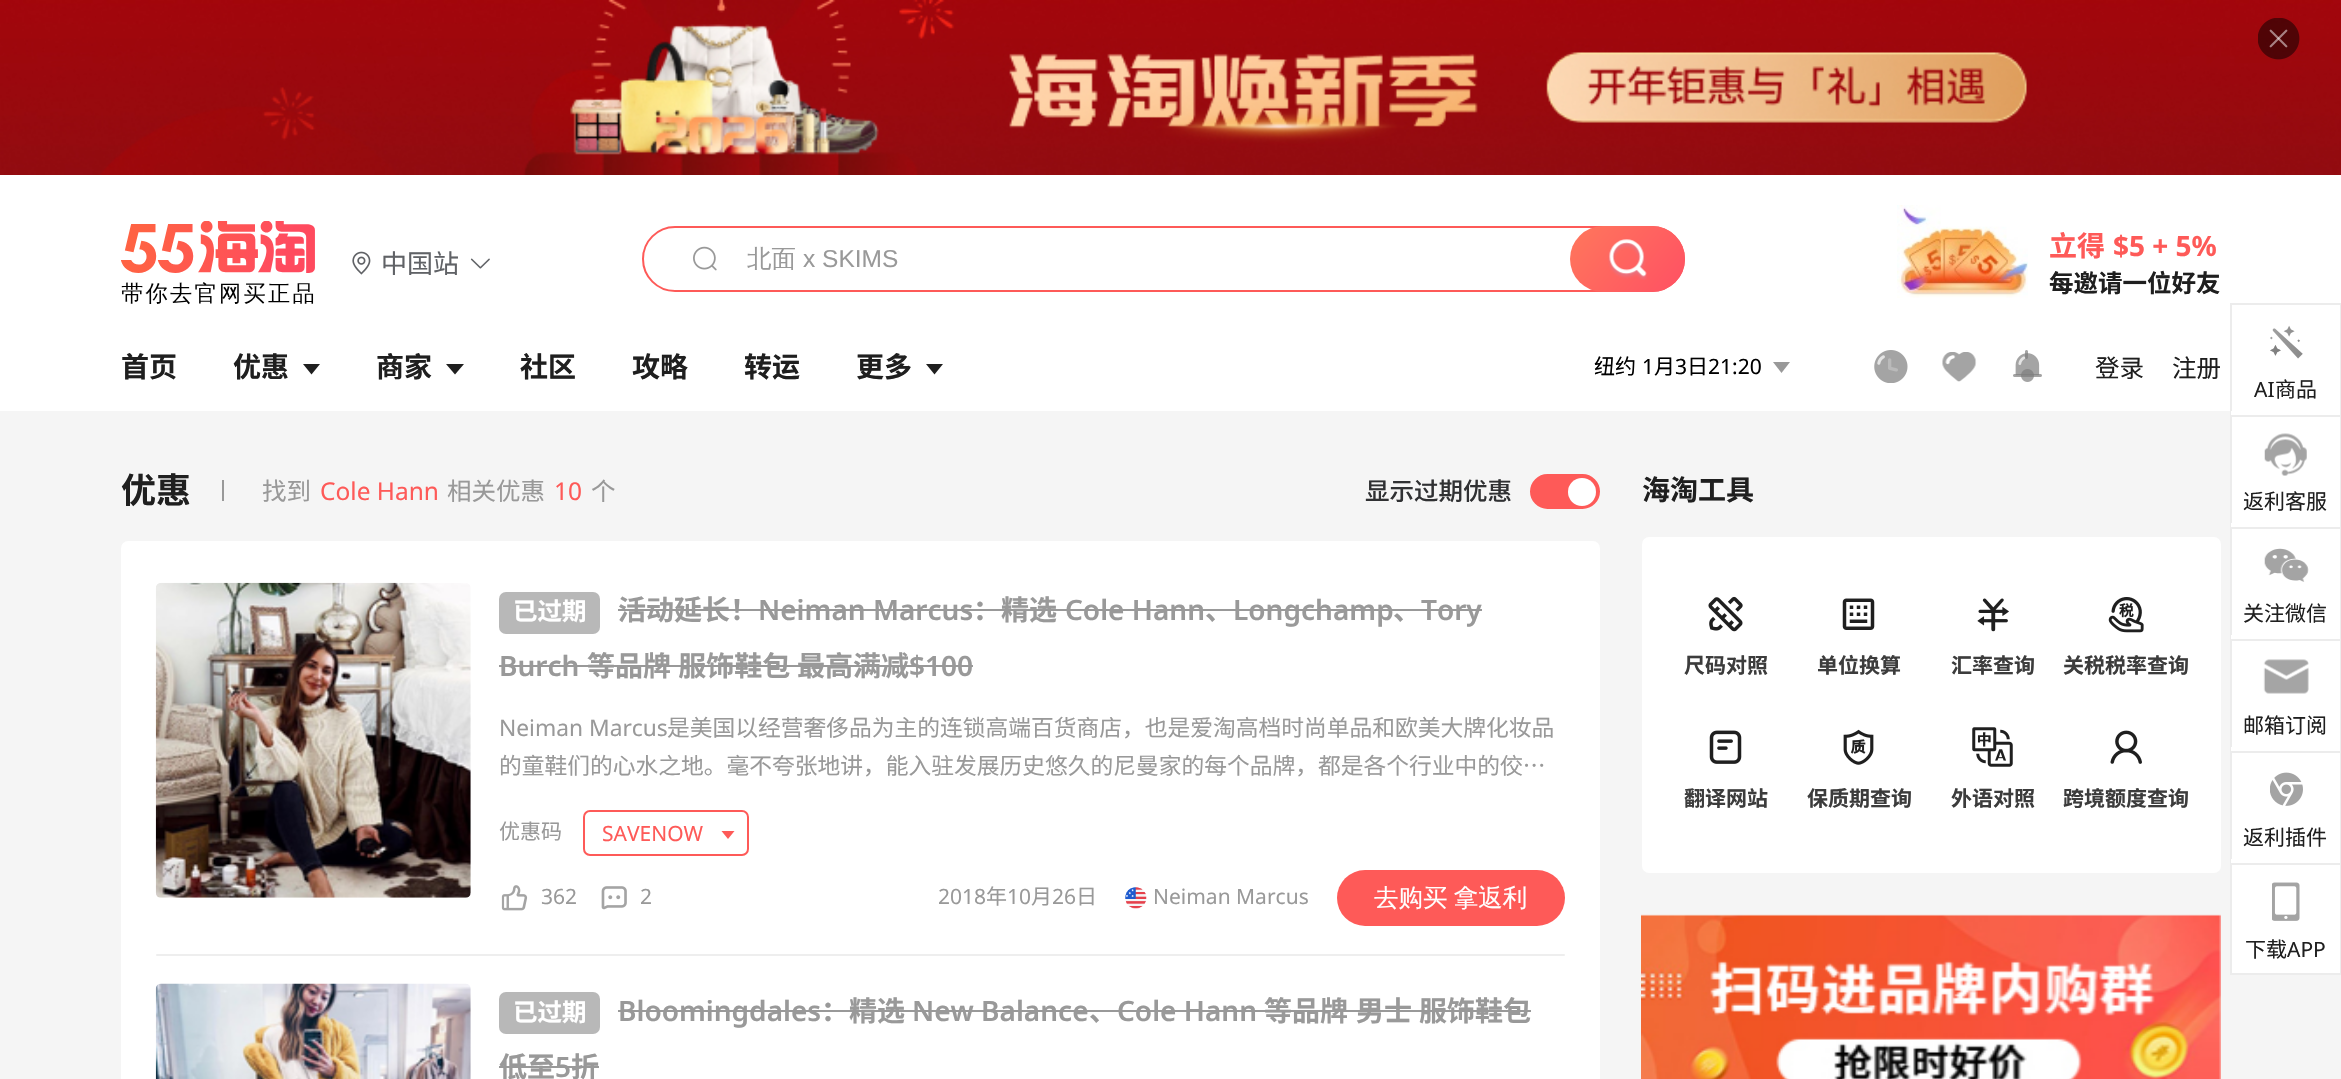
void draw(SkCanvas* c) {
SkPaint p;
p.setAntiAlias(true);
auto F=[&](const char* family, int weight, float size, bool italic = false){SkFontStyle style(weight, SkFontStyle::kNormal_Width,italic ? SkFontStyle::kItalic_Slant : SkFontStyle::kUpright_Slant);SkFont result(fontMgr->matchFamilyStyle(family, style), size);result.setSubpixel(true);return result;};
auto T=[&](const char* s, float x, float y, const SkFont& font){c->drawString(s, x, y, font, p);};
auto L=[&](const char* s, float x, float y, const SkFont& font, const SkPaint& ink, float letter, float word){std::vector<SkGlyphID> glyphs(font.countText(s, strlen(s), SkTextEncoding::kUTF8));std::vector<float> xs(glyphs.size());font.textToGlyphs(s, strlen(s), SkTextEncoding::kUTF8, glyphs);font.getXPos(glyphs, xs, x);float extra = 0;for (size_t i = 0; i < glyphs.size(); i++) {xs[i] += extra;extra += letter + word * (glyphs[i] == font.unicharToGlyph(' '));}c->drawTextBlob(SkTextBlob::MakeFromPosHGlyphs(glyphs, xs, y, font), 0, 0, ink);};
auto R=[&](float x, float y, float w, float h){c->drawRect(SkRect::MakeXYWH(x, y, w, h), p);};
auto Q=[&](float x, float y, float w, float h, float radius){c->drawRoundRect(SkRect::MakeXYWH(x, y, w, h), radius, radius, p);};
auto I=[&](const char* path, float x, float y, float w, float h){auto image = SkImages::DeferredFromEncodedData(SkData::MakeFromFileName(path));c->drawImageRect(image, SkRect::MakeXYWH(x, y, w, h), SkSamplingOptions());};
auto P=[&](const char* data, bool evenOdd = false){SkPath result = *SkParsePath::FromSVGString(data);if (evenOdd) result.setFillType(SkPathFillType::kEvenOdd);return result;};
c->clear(0xfff5f5f5);
p.setColor(0xffffffff);
R(0,175,2341,149);
I("1.png",0,0,2341,175);
I("2.png",2258,18,42,42);
I("3.png",121,221,194,84);
I("4.png",352,251,19,24);
auto f1 = F("Noto Sans CJK SC",400,26);
p.setColor(0xff606266);
T("中国站",381,273,f1);
I("5.png",470,258,20,11);
I("6.png",1897,205,131,93);
auto f2 = F("Noto Sans CJK SC",700,28);
p.setColor(0xfffe5a58);
T("立得",2049,256,f2);
auto f3 = F("Noto Sans",700,28);
T("$5 + 5%",2113,256,f3);
auto f4 = F("Noto Sans CJK SC",700,24.5);
p.setColor(0xff1f1f1f);
T("每邀请一位好友",2049,292,f4);
p.setColor(0xffffffff);
R(0,324,2230,87);
p.setStroke(true);
p.setStrokeWidth(2);
p.setColor(0xfffe5a58);
c->drawRoundRect(SkRect::MakeXYWH(643,227,1041,64),32,32,p);
I("7.png",693,246,24,25);
auto f5 = F("WenQuanYi Zen Hei",500,24.5);
p.setStroke(false);
p.setColor(0xff999999);
T("北面",747,267,f5);
auto f6 = F("Liberation Sans",400,24.5);
T("x SKIMS",803,267,f6);
{
const SkColor colors[] = {0xffff775c,0xffff5063};
const float stops[] = {0,1};
const SkPoint ends[] = {{1577,217}, {1678,301}};
p.setShader(SkGradientShader::MakeLinear(ends, colors, stops, 2, SkTileMode::kClamp));
p.setAlpha(255);
}
Q(1570,226,115,66,33);
I("8.png",1608,239,39,41);
p.setShader(nullptr);
p.setColor(0xff1f1f1f);
T("首页",121,377,f2);
T("优惠",233,377,f2);
c->drawPath(P("M303 364l8.5 10.5l8.5-10.5z"),p);
T("商家",376,377,f2);
c->drawPath(P("M446 364l9 10.5l9-10.5z"),p);
T("社区",520,377,f2);
T("攻略",632,377,f2);
T("转运",744,377,f2);
T("更多",856,377,f2);
c->drawPath(P("M926 364l8.5 10.5l8.5-10.5z"),p);
auto f7 = F("Noto Sans CJK SC",400,21);
p.setColor(0xff000000);
T("纽约",1594,374,f7);
auto f8 = F("Noto Sans",400,21);
T("1",1642,374,f8);
T("月",1654,374,f7);
T("3",1675,374,f8);
T("日",1687,374,f7);
T("21:20",1708,374,f8);
p.setColor(0xff999999);
c->drawPath(P("M1773 362l8.5 11l8.5-11z"),p);
I("9.png",1874,350,34,33);
I("10.png",1942,352,35,30);
I("11.png",2013,350,29,32);
auto f9 = F("Noto Sans CJK SC",400,24.5);
p.setColor(0xff1f1f1f);
T("登录",2095,377,f9);
T("注册",2172,377,f9);
auto f10 = F("Noto Sans CJK SC",700,35);
T("优惠",121,503,f10);
p.setColor(0xff999999);
R(222,480,2,21);
T("找到",262,500,f9);
auto f11 = F("Noto Sans",400,24.5);
p.setColor(0xfffe5a58);
T("Cole Hann",320,500,f11);
p.setColor(0xff999999);
T("相关优惠",447,500,f9);
p.setColor(0xfffe5a58);
T("10",554,500,f11);
p.setColor(0xff999999);
T("个",591,500,f9);
auto f12 = F("Noto Sans CJK SC",500,24.5);
p.setColor(0xff303133);
T("显示过期优惠",1365,500,f12);
p.setColor(0xfffe5a58);
c->drawRoundRect(SkRect::MakeXYWH(1531,475,68,33),16.5,16.5,p);
p.setStroke(true);
c->drawRoundRect(SkRect::MakeXYWH(1531,475,68,33),16.5,16.5,p);
p.setStroke(false);
p.setColor(0xffffffff);
c->drawCircle(1582,492,14,p);
Q(121,541,1479,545,7);
I("12.png",155,582,316,316);
p.setColor(0xffb8b8b8);
Q(499,592,101,42,7);
p.setColor(0xffffffff);
T("已过期",513,620,f4);
p.setColor(0xff999999);
T("活动延长！",618,620,f2);
R(618,609,864,2);
auto f13 = F("Noto Sans",600,28);
T("Neiman Marcus",758,620,f13);
T("：精选",973,620,f2);
T("Cole Hann",1065,620,f13);
T("、",1205,620,f2);
T("Longchamp",1233,620,f13);
T("、",1393,620,f2);
T("Tory",1421,620,f13);
T("Burch",499,676,f13);
R(499,665,297,2);
L("等品牌 服饰鞋包",587,676,f2,p,0,1);
T("最高满减",797,676,f2);
T("$100",909,676,f13);
R(796,665,177,2);
auto f14 = F("Noto Sans",400,22.75);
T("Neiman Marcus",499,736,f14);
auto f15 = F("Noto Sans CJK SC",400,22.75);
T("是美国以经营奢侈品为主的连锁高端百货商店，也是爱淘高档时尚单品和欧美大牌化妆品",667,736,f15);
T("的童鞋们的心水之地。毫不夸张地讲，能入驻发展历史悠久的尼曼家的每个品牌，都是各个行业中的佼…",499,774,f15);
T("优惠码",499,839,f7);
p.setStroke(true);
p.setColor(0xfffe5a58);
c->drawRoundRect(SkRect::MakeXYWH(584,811,164,44),6,6,p);
p.setStroke(false);
T("SAVENOW",602,841,f8);
c->drawPath(P("M721.5 831l6.5 8l6.5-8z"),p);
I("13.png",501,885,27,26);
p.setColor(0xff999999);
T("362",541,904,f8);
I("14.png",601,886,26,24);
T("2",640,904,f8);
T("2018",938,904,f8);
T("年",986,904,f7);
T("10",1007,904,f8);
T("月",1031,904,f7);
T("26",1052,904,f8);
T("日",1076,904,f7);
I("15.png",1125,887,22,22);
T("Neiman Marcus",1153,904,f8);
p.setColor(0xfffe5a58);
Q(1337,870,228,56,28);
p.setColor(0xffffffff);
L("去购买 拿返利",1374,906,f5,p,0,-1);
p.setColor(0xffeeeeee);
Q(156,954,1409,2,1);
I("16.png",155,983,316,96);
p.setColor(0xffb8b8b8);
Q(499,992,101,42,7);
p.setColor(0xffffffff);
T("已过期",513,1021,f4);
p.setColor(0xff999999);
T("Bloomingdales",618,1021,f13);
T("：精选",821,1021,f2);
R(618,1010,913,2);
T("New Balance",912,1021,f13);
T("、",1089,1021,f2);
T("Cole Hann",1117,1021,f13);
T("等品牌",1264,1021,f2);
T("男士",1356,1021,f2);
T("服饰鞋包",1419,1021,f2);
T("低至",499,1077,f2);
T("5",555,1077,f13);
R(499,1066,100,2);
T("折",571,1077,f2);
p.setColor(0xff1f1f1f);
T("海淘工具",1642,500,f2);
p.setColor(0xffffffff);
Q(1642,537,579,336,7);
I("17.png",1708,596,35,36);
auto f16 = F("Noto Sans CJK SC",700,21);
p.setColor(0xff3c3c3c);
T("尺码对照",1684,673,f16);
I("18.png",1842,598,33,32);
T("单位换算",1817,673,f16);
I("19.png",1977,598,32,34);
T("汇率查询",1951,673,f16);
I("20.png",2108,597,36,36);
T("关税税率查询",2063,673,f16);
I("21.png",1709,730,33,34);
T("翻译网站",1684,806,f16);
I("22.png",1843,729,31,36);
T("保质期查询",1807,806,f16);
I("23.png",1972,727,41,40);
T("外语对照",1951,806,f16);
I("24.png",2110,730,32,34);
T("跨境额度查询",2063,806,f16);
I("25.png",1641,914,580,165);
p.setColor(0xffffffff);
R(2232,324,108,87);
p.setStroke(true);
p.setColor(0xffececec);
c->drawRect(SkRect::MakeXYWH(2231,304,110,110),p);
I("26.png",2270,325,33,34);
p.setStroke(false);
p.setColor(0xff1f1f1f);
T("AI",2254,397,f8);
T("商品",2275,397,f7);
p.setColor(0xffffffff);
R(2231,411,109,4);
R(2232,417,108,106);
p.setStroke(true);
p.setColor(0xffececec);
c->drawRect(SkRect::MakeXYWH(2231,416,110,110),p);
I("27.png",2264,433,43,43);
p.setStroke(false);
p.setColor(0xff1f1f1f);
T("返利客服",2243,509,f7);
p.setColor(0xffffffff);
R(2231,523,109,4);
R(2232,529,108,106);
p.setStroke(true);
p.setColor(0xffececec);
c->drawRect(SkRect::MakeXYWH(2231,528,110,110),p);
I("28.png",2264,548,45,34);
p.setStroke(false);
p.setColor(0xff1f1f1f);
T("关注微信",2243,621,f7);
p.setColor(0xffffffff);
R(2231,635,109,4);
R(2232,641,108,106);
p.setStroke(true);
p.setColor(0xffececec);
c->drawRect(SkRect::MakeXYWH(2231,640,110,110),p);
I("29.png",2263,659,46,35);
p.setStroke(false);
p.setColor(0xff1f1f1f);
T("邮箱订阅",2243,733,f7);
p.setColor(0xffffffff);
R(2231,747,109,4);
R(2232,753,108,106);
p.setStroke(true);
p.setColor(0xffececec);
c->drawRect(SkRect::MakeXYWH(2231,752,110,110),p);
I("30.png",2270,772,33,34);
p.setStroke(false);
p.setColor(0xff1f1f1f);
T("返利插件",2243,845,f7);
p.setColor(0xffffffff);
R(2231,859,109,4);
c->drawRect(SkRect::MakeXYWH(2231,864,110,110),p);
p.setStroke(true);
p.setColor(0xffececec);
c->drawRect(SkRect::MakeXYWH(2231,864,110,110),p);
I("31.png",2272,882,28,39);
p.setStroke(false);
p.setColor(0xff1f1f1f);
T("下载",2245,957,f7);
T("APP",2287,957,f8);
}
